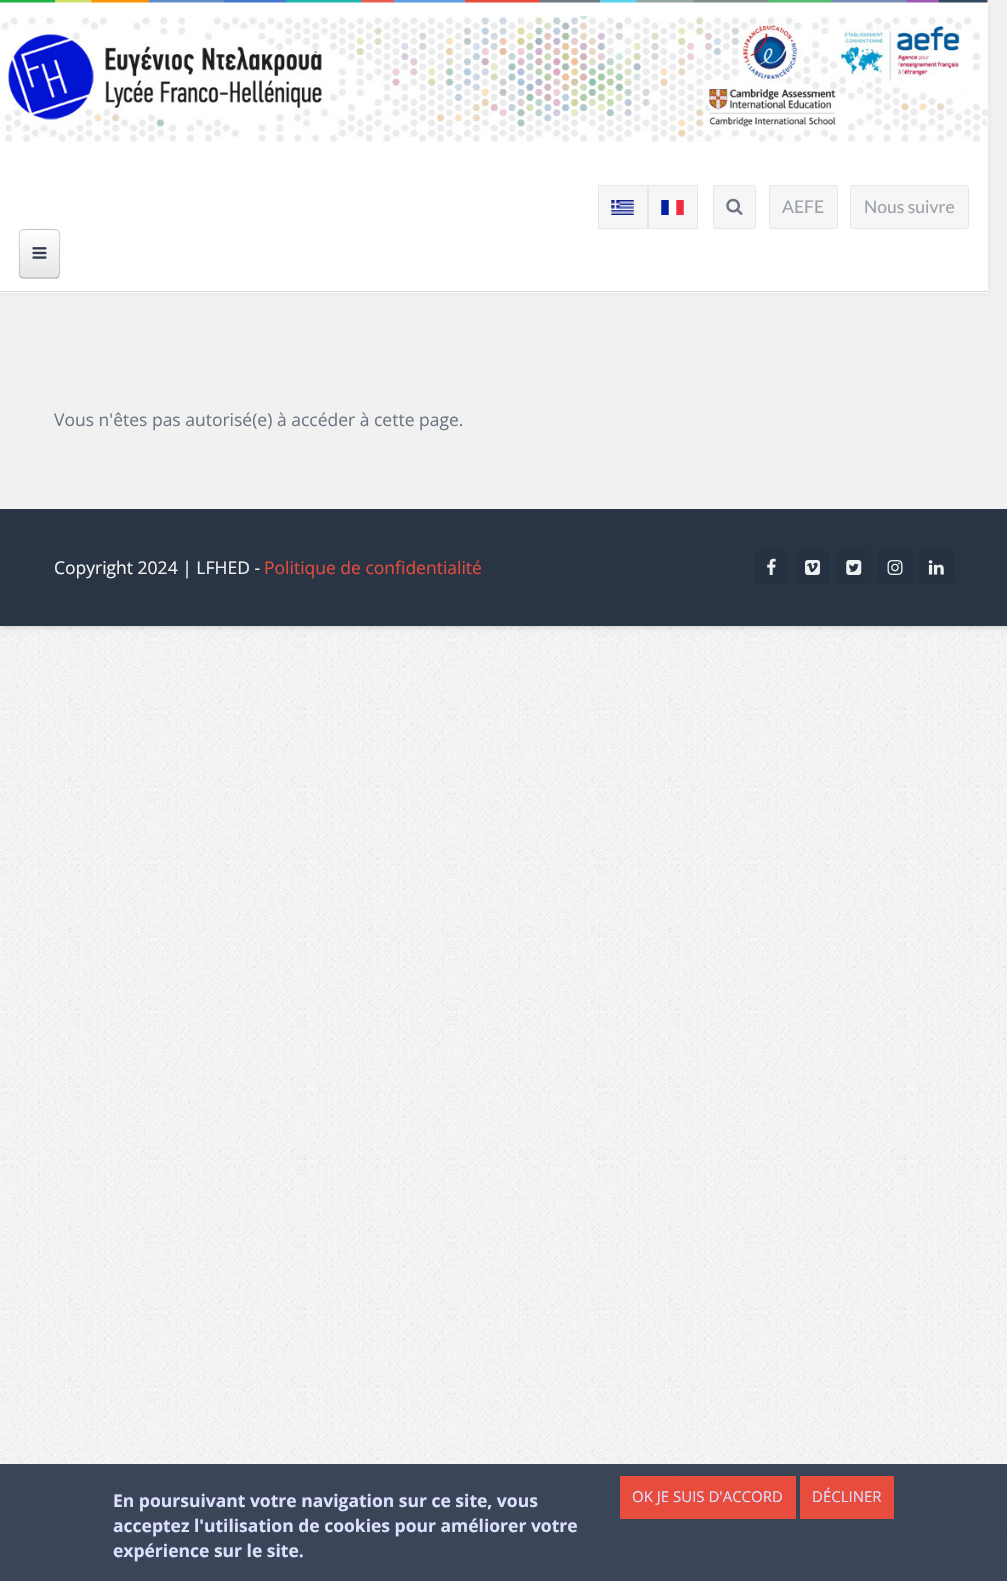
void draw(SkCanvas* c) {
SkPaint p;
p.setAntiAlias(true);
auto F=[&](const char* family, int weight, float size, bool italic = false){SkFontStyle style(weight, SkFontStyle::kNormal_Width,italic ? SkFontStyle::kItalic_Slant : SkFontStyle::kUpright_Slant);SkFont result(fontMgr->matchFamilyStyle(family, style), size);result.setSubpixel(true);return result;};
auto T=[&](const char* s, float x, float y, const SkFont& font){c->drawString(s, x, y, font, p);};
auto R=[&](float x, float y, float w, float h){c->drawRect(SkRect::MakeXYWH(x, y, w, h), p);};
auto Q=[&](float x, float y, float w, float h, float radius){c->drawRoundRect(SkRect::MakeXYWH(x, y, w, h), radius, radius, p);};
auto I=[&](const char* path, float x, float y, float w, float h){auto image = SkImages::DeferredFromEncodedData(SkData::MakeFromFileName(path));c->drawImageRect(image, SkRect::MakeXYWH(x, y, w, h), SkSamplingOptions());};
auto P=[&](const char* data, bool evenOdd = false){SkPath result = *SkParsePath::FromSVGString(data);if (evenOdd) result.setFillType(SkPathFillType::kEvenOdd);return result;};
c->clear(0xffffffff);
I("1.png",0,626,1007,955);
p.setColor(0x33000000);
p.setMaskFilter(SkMaskFilter::MakeBlur(kNormal_SkBlurStyle, 3));
c->drawRect(SkRect::MakeXYWH(0,0,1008,626),p);
p.setMaskFilter(nullptr);
p.setColor(0xfff1f1f1);
R(0,0,1007,509);
p.setColor(0xffe2e3e4);
p.setMaskFilter(SkMaskFilter::MakeBlur(kNormal_SkBlurStyle, 3));
c->drawRect(SkRect::MakeXYWH(0,0,988,293),p);
p.setMaskFilter(nullptr);
p.setColor(0xffffffff);
R(0,0,988,293);
I("2.png",0,0,988,3);
p.setColor(0xffd3d5d7);
R(0,291,988,1);
I("3.png",1,15,987,127);
p.setColor(0xfff6f6f6);
c->drawRect(SkRect::MakeXYWH(598.5,185.5,49,43),p);
p.setStroke(true);
p.setStrokeWidth(1);
p.setColor(0xffe4e6e8);
c->drawRect(SkRect::MakeXYWH(598.5,185.5,49,43),p);
I("4.png",611,200,23,15);
p.setStroke(false);
p.setColor(0xfff6f6f6);
c->drawRect(SkRect::MakeXYWH(648.5,185.5,49,43),p);
p.setStroke(true);
p.setColor(0xffe4e6e8);
c->drawRect(SkRect::MakeXYWH(648.5,185.5,49,43),p);
I("5.png",661,200,23,15);
p.setStroke(false);
p.setColor(0xfff6f6f6);
c->drawRoundRect(SkRect::MakeXYWH(713.5,185.5,42,43),2,2,p);
p.setStroke(true);
p.setColor(0xffe4e6e8);
c->drawRoundRect(SkRect::MakeXYWH(713.5,185.5,42,43),2,2,p);
I("6.png",726,198,17,17);
p.setStroke(false);
p.setColor(0xfff6f6f6);
c->drawRoundRect(SkRect::MakeXYWH(769.5,185.5,68,43),2,2,p);
p.setStroke(true);
p.setColor(0xffe4e6e8);
c->drawRoundRect(SkRect::MakeXYWH(769.5,185.5,68,43),2,2,p);
auto f1 = F("Lato",400,17.5);
p.setStroke(false);
p.setColor(0xff9ba1a8);
T("AEFE",782,213,f1);
p.setColor(0xfff6f6f6);
c->drawRoundRect(SkRect::MakeXYWH(850.5,185.5,118,43),2,2,p);
p.setStroke(true);
p.setColor(0xffe4e6e8);
c->drawRoundRect(SkRect::MakeXYWH(850.5,185.5,118,43),2,2,p);
p.setStroke(false);
p.setColor(0xff9ba1a8);
T("Nous suivre",864,213,f1);
p.setColor(0xffe8e8e8);
Q(19,229,41,50,5);
c->save();
c->clipPath(P("M24 229h31c3 0 5 2 5 5v40c0 3-2 5-5 5h-31c-3 0-5-2-5-5v-40c0-3 2-5 5-5z"),true);
{
const SkColor colors[] = {0xffffffff,0xffe6e6e6};
const float stops[] = {0,1};
const SkPoint ends[] = {{39,230}, {39,278}};
p.setShader(SkGradientShader::MakeLinear(ends, colors, stops, 2, SkTileMode::kClamp));
p.setAlpha(255);
}
R(19,230,41,48);
c->restore();
p.setStroke(true);
p.setStrokeWidth(1.2);
p.setShader(nullptr);
p.setColor(0x40000000);
c->drawPath(P("M58 277c-.5 .5-2 1-3 1h-31c-1.5 0-2.5-.5-3.5-1"),p);
p.setColor(0x26000000);
c->drawPath(P("M20.5 277c-2-2.5-1-7.5-1-10v-13c0-27.5-5-24.5 20-24.5c25 0 20-3 20 24.5v13c0 2.5 1 7.5-1.5 10"),p);
I("7.png",32,247,15,12);
auto f2 = F("Open Sans",400,17.5);
p.setStroke(false);
p.setColor(0xff6d7683);
T("Vous n'êtes pas autorisé(e) à accéder à cette page.",54,426,f2);
p.setColor(0xff293545);
R(0,509,1007,117);
p.setColor(0xfff1f1f1);
T("Copyright 2024 | LFHED -",54,574,f2);
p.setColor(0xffe74c3c);
T("Politique de confidentialité",264,574,f2);
p.setColor(0xff263241);
Q(754,550,35,35,2.5);
I("8.png",767,558,9,17);
Q(795,550,35,35,2.5);
I("9.png",805,560,15,15);
Q(836,550,35,35,2.5);
I("10.png",846,560,16,15);
Q(878,550,35,35,2.5);
I("11.png",887,560,16,15);
Q(919,550,35,35,2.5);
I("12.png",928,560,16,15);
p.setColor(0xf22f3c4e);
R(0,1464,1007,117);
auto f3 = F("Open Sans",700,17.5);
p.setColor(0xffdddfff);
T("En poursuivant votre navigation sur ce site, vous",113,1507,f3);
T("acceptez l'utilisation de cookies pour améliorer votre",113,1532,f3);
T("expérience sur le site.",113,1557,f3);
p.setColor(0xffe74c3c);
R(620,1476,176,43);
auto f4 = F("Open Sans",400,15);
p.setColor(0xffdddfff);
T("OK JE SUIS D'ACCORD",632,1502,f4);
p.setColor(0xffe74c3c);
R(800,1476,94,43);
p.setColor(0xffdddfff);
T("DÉCLINER",812,1502,f4);
}
